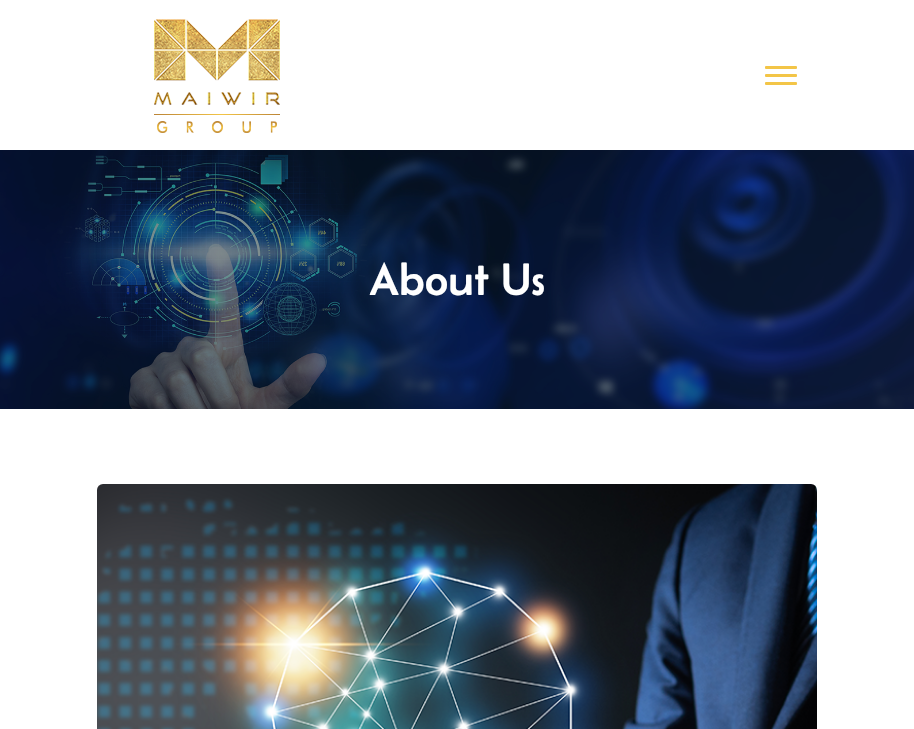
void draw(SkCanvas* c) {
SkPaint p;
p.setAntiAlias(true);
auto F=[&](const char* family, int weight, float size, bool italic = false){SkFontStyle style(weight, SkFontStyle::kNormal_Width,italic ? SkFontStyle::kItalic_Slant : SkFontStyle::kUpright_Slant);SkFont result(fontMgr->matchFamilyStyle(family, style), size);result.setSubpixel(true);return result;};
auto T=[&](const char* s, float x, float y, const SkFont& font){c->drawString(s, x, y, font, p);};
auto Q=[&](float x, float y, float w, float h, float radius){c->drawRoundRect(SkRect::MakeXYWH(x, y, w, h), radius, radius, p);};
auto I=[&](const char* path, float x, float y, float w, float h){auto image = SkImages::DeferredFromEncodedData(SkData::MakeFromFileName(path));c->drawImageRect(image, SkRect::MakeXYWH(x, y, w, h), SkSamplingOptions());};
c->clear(0xffffffff);
I("1.png",154,19,126,114);
p.setColor(0xfff3c547);
Q(765,66,32,3,1);
Q(765,74,32,3,1);
Q(765,82,32,3,1);
I("2.png",0,150,914,259);
auto f1 = F("Belanosima",400,46);
p.setColor(0xffffffff);
T("About Us",369,295,f1);
I("3.png",97,484,720,245);
}
